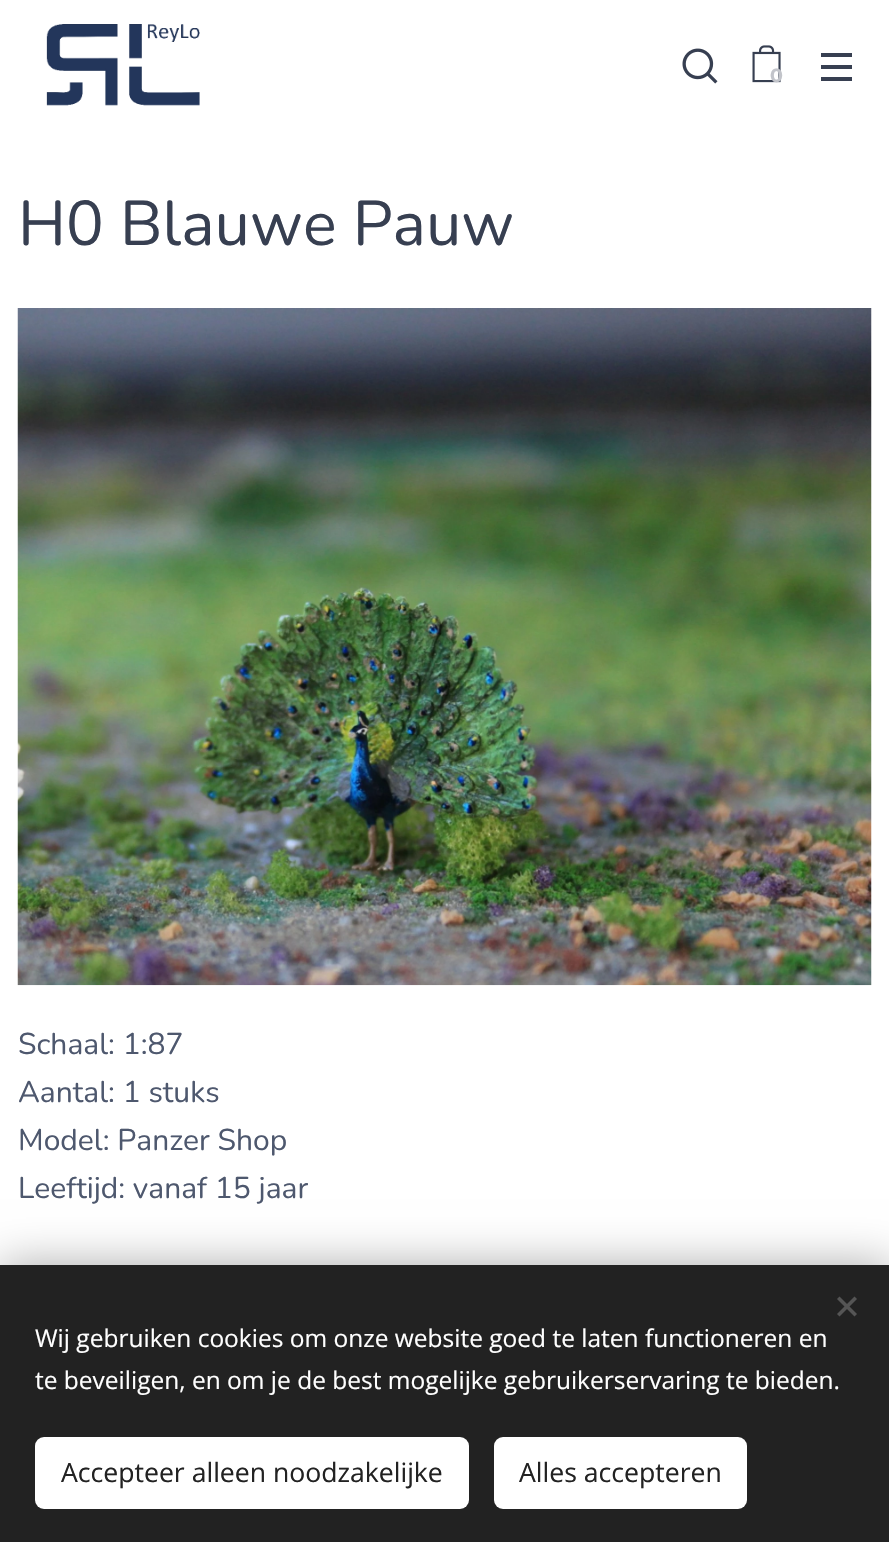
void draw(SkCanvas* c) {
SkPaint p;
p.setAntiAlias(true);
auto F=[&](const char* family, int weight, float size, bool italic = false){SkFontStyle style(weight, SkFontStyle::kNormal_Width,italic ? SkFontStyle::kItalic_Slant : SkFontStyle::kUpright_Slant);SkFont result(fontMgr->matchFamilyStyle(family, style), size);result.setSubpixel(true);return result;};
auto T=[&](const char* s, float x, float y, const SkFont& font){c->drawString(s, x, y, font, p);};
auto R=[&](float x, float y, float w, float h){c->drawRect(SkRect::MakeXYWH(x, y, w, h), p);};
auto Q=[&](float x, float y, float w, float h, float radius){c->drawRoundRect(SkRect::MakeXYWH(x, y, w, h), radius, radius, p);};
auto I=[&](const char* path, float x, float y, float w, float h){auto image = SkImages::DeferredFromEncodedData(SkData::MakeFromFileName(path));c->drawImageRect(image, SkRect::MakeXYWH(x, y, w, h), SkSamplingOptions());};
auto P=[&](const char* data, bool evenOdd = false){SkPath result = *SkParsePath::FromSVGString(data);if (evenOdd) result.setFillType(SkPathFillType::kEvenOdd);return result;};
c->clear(0xffffffff);
I("1.png",46,24,154,82);
I("2.png",682,48,36,36);
I("3.png",752,45,29,38);
auto f1 = F("Montserrat",700,19);
p.setColor(0xffc2c4ca);
T("0",770,82,f1);
p.setColor(0xff373f51);
R(821,65,31,4);
R(821,53,31,4);
R(821,77,31,4);
auto f2 = F("Nunito",400,63);
T("H0 Blauwe Pauw",18,245,f2);
I("4.png",17,308,855,678);
auto f3 = F("Nunito",400,30);
p.setColor(0xff4e586e);
T("Schaal: 1:87",18,1054,f3);
T("Aantal: 1 stuks",18,1102,f3);
T("Model: Panzer Shop",18,1150,f3);
T("Leeftijd: vanaf 15 jaar",18,1198,f3);
p.setColor(0x54000000);
p.setMaskFilter(SkMaskFilter::MakeBlur(kNormal_SkBlurStyle, 22));
c->drawRect(SkRect::MakeXYWH(0,1265,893,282),p);
p.setMaskFilter(nullptr);
p.setColor(0xff222222);
R(0,1265,889,277);
p.setColor(0xff555555);
c->drawPath(P("M837 1314l17.5-17.5l2.5 2.5l-17.5 17.5z"),p);
c->drawPath(P("M839.5 1296.5l17.5 17.5l-2.5 2.5l-17.5-17.5z"),p);
auto f4 = F("Open Sans",400,24.5);
p.setColor(0xffffffff);
T("Wij gebruiken cookies om onze website goed te laten functioneren en",35,1347,f4);
T("te beveiligen, en om je de best mogelijke gebruikerservaring te bieden.",35,1389,f4);
Q(35,1437,434,72,9);
auto f5 = F("Open Sans",400,26.6);
p.setColor(0xff222222);
T("Accepteer alleen noodzakelijke",61,1482,f5);
p.setColor(0xffffffff);
Q(494,1437,253,72,9);
p.setColor(0xff222222);
T("Alles accepteren",519,1482,f5);
}
